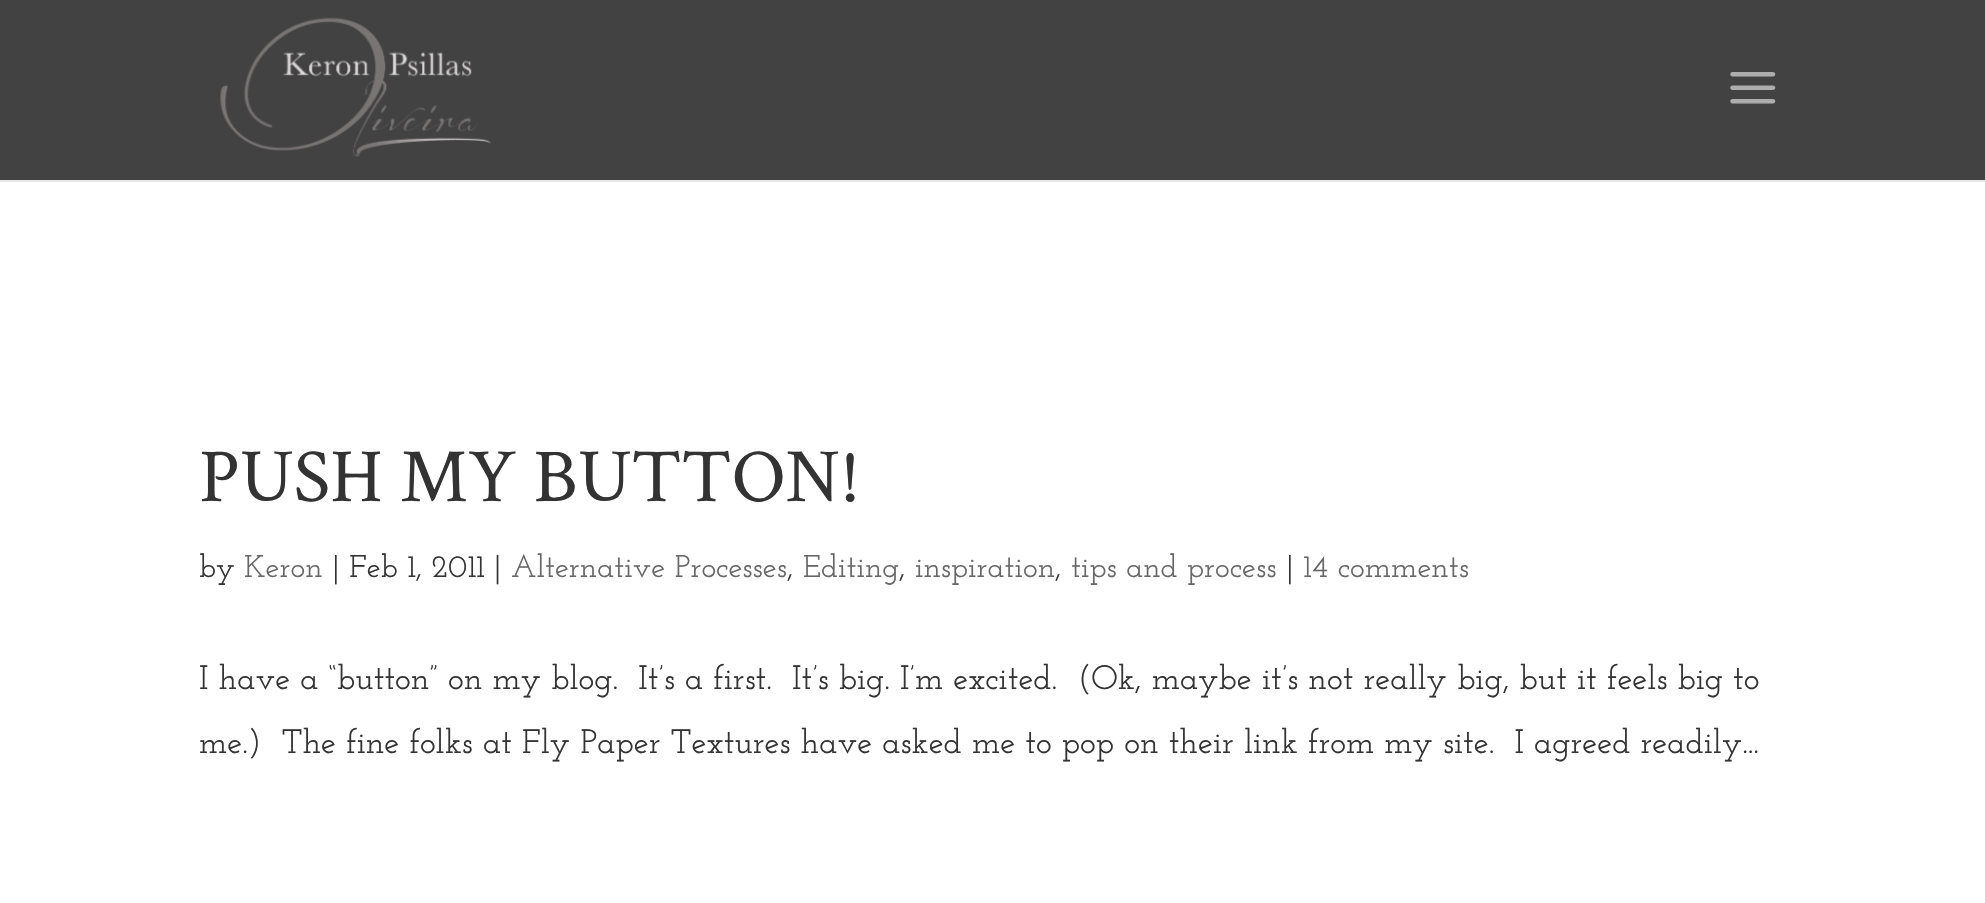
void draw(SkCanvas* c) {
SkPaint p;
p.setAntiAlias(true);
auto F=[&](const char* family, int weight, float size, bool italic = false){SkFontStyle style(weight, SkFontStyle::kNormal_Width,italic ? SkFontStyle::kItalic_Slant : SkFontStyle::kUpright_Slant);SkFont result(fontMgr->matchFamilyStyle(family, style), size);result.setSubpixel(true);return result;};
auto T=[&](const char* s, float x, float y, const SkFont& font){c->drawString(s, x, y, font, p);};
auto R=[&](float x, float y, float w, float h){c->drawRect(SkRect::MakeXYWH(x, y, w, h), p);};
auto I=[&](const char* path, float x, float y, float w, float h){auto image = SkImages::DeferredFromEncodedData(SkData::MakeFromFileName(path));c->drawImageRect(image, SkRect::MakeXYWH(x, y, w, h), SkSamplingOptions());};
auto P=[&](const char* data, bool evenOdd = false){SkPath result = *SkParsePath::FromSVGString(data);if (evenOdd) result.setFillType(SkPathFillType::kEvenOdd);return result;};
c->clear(0xffffffff);
p.setColor(0xffe6e6e6);
c->drawPath(P("M0 180v2h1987v-180v178z"),p);
p.setColor(0xff424242);
R(0,0,1985,180);
I("1.png",220,17,271,140);
I("2.png",1730,72,46,32);
auto f1 = F("Crimson Text",400,76.5);
p.setColor(0xff333333);
T("PUSH MY BUTTON!",199,501,f1);
auto f2 = F("Josefin Slab",500,31.5);
T("by",199,577,f2);
p.setColor(0xff666666);
T("Keron",244,577,f2);
p.setColor(0xff333333);
T("| Feb 1, 2011 |",332,577,f2);
p.setColor(0xff666666);
T("Alternative Processes",511,577,f2);
p.setColor(0xff333333);
T(",",787,577,f2);
p.setColor(0xff666666);
T("Editing",803,577,f2);
p.setColor(0xff333333);
T(",",899,577,f2);
p.setColor(0xff666666);
T("inspiration",915,577,f2);
p.setColor(0xff333333);
T(",",1055,577,f2);
p.setColor(0xff666666);
T("tips and process",1071,577,f2);
p.setColor(0xff333333);
T("|",1286,577,f2);
p.setColor(0xff666666);
T("14 comments",1303,577,f2);
auto f3 = F("Josefin Slab",500,33.75);
p.setColor(0xff333333);
T("I have a “button” on my blog.  It’s a first.  It’s big. I’m excited.  (Ok, maybe it’s not really big, but it feels big to",199,689,f3);
T("me.)  The fine folks at Fly Paper Textures have asked me to pop on their link from my site.  I agreed readily...",199,753,f3);
}
